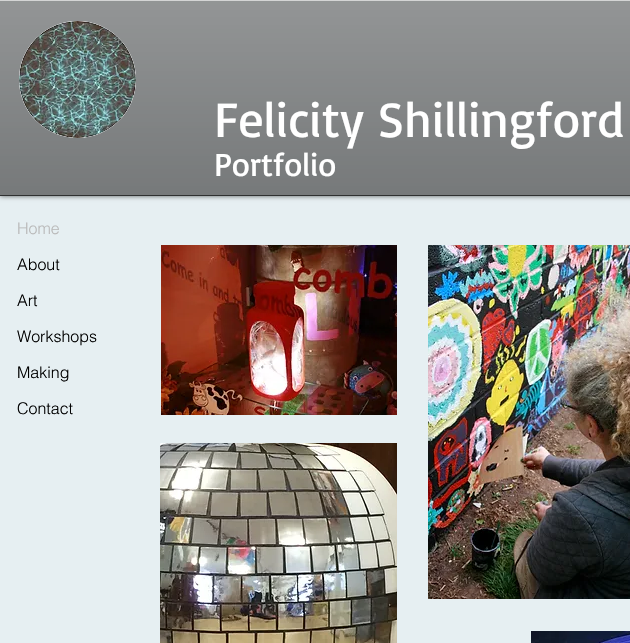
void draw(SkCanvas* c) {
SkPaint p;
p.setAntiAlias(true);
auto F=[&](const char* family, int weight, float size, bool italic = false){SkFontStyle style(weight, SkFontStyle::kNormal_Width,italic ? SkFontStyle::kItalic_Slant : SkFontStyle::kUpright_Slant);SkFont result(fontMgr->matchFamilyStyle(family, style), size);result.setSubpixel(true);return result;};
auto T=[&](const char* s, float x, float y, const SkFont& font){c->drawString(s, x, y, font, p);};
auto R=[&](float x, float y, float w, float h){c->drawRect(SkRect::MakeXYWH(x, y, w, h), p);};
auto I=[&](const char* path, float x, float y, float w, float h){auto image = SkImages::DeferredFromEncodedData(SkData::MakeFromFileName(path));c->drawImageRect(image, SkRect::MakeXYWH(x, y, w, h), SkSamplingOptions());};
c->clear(0xffe6eff2);
p.setColor(0x99000000);
p.setMaskFilter(SkMaskFilter::MakeBlur(kNormal_SkBlurStyle, 2.5));
c->drawRect(SkRect::MakeXYWH(0,0,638,196),p);
p.setMaskFilter(nullptr);
p.setColor(0xff6d7071);
R(0,1,630,194);
I("1.png",0,1,630,194);
p.setColor(0xff2f3131);
R(0,195,630,1);
p.setColor(0xffd4d5d5);
R(0,0,630,1);
p.setColor(0xffffffff);
c->drawCircle(77.5,79.5,58.5,p);
I("2.png",19,21,117,117);
auto f1 = F("Basic",400,50);
T("Felicity Shillingford",214,137,f1);
auto f2 = F("Basic",400,33);
T("Portfolio",214,176,f2);
auto f3 = F("helvetica",300,16);
p.setColor(0xffb9b9b9);
T("Home",17,234,f3);
p.setColor(0xff000000);
T("About",17,270,f3);
T("Art",17,306,f3);
T("Workshops",17,342,f3);
T("Making",17,378,f3);
T("Contact",17,414,f3);
I("3.png",161,245,236,170);
I("4.png",428,245,202,354);
I("5.png",160,443,237,200);
I("6.png",531,631,99,12);
}
